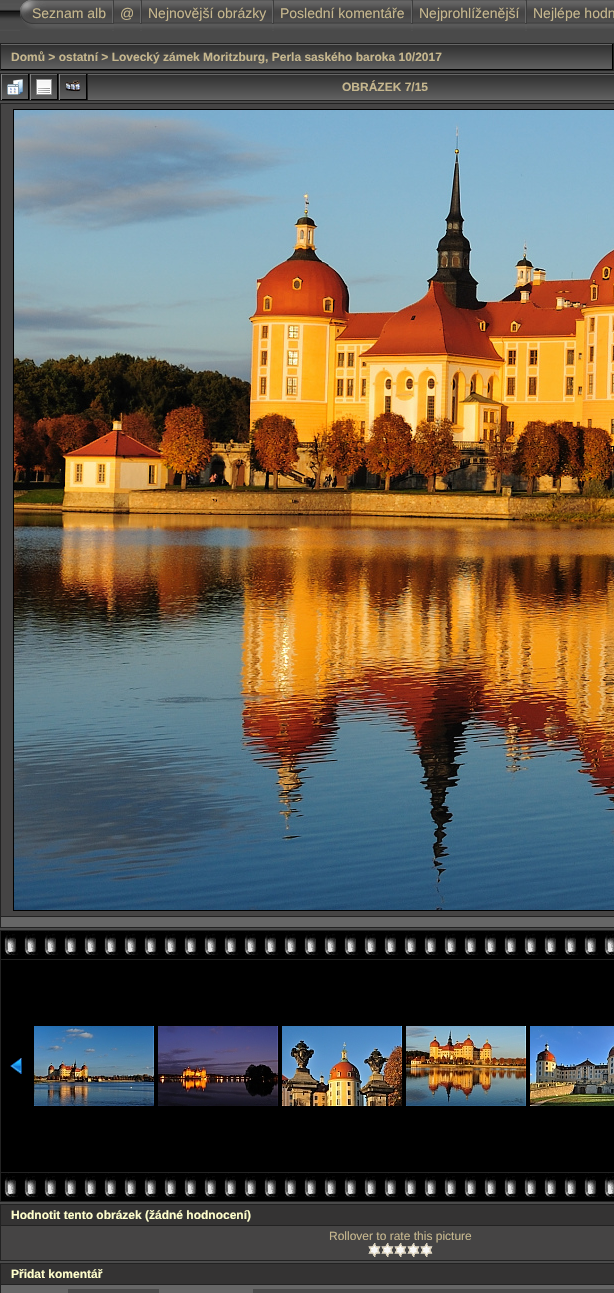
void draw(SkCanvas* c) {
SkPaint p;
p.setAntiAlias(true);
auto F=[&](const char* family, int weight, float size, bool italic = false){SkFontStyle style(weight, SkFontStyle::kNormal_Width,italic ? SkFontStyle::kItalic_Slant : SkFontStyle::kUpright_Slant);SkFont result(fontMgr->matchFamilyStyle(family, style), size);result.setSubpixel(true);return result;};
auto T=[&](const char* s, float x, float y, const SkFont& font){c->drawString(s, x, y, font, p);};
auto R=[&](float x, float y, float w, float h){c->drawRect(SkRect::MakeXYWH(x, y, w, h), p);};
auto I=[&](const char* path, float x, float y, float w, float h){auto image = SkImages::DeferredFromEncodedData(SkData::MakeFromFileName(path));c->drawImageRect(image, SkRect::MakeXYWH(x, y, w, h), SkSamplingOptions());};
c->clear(0xff4a4a4a);
I("1.png",0,0,527,31);
p.setColor(0xff4a4a4a);
R(20,30,92,1);
I("2.png",20,0,92,29);
auto f1 = F("Liberation Sans",400,14);
p.setColor(0xffc6b78e);
T("Seznam alb",32,18,f1);
I("3.png",112,0,2,29);
p.setColor(0xff4a4a4a);
R(114,30,26,1);
I("4.png",114,0,26,29);
p.setColor(0xffc6b78e);
T("@",120,18,f1);
I("3.png",140,0,2,29);
p.setColor(0xff4a4a4a);
R(142,30,130,1);
I("5.png",142,0,130,29);
p.setColor(0xffc6b78e);
T("Nejnovější obrázky",148,18,f1);
I("3.png",272,0,2,29);
p.setColor(0xff4a4a4a);
R(274,30,137,1);
I("6.png",274,0,137,29);
p.setColor(0xffc6b78e);
T("Poslední komentáře",280,18,f1);
I("3.png",411,0,2,29);
p.setColor(0xff4a4a4a);
R(413,30,112,1);
I("7.png",413,0,112,29);
p.setColor(0xffc6b78e);
T("Nejprohlíženější",419,18,f1);
I("3.png",525,0,2,29);
I("8.png",527,0,87,29);
T("Nejlépe hodn",533,18,f1);
p.setColor(0xff222222);
R(0,43,614,28);
I("9.png",1,44,611,25);
p.setColor(0xff000000);
R(612,44,1,26);
R(1,69,612,1);
auto f2 = F("Liberation Sans",700,12);
p.setColor(0xffc6b78e);
T("Domů > ostatní > Lovecký zámek Moritzburg, Perla saského baroka 10/2017",11,61,f2);
p.setColor(0xff222222);
R(0,73,614,28);
I("10.png",2,74,26,25);
p.setColor(0xff000000);
R(28,74,1,26);
R(1,99,28,1);
p.setColor(0xff838383);
R(1,74,1,26);
I("11.png",7,79,16,16);
I("10.png",31,74,26,25);
p.setColor(0xff000000);
R(57,74,1,26);
R(30,99,28,1);
p.setColor(0xff838383);
R(30,74,1,26);
I("12.png",36,79,16,16);
I("10.png",60,74,26,25);
p.setColor(0xff000000);
R(86,74,1,26);
R(59,99,28,1);
p.setColor(0xff838383);
R(59,74,1,26);
I("13.png",65,80,16,12);
I("14.png",88,74,526,26);
p.setColor(0xffc6b78e);
T("OBRÁZEK 7/15",342,91,f2);
p.setColor(0xff222222);
R(0,103,614,825);
p.setColor(0xff454444);
R(1,104,613,812);
I("15.png",14,110,600,800);
p.setStroke(true);
p.setStrokeWidth(1);
p.setColor(0xff000000);
c->drawRect(SkRect::MakeXYWH(13.5,109.5,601,801),p);
p.setStroke(false);
p.setColor(0xff666666);
R(1,917,613,10);
p.setColor(0xff222222);
R(0,930,614,272);
p.setColor(0xff000000);
R(1,931,613,28);
I("16.png",4,931,610,24);
R(1,960,613,212);
I("17.png",10,1058,12,16);
I("18.png",34,1026,120,80);
I("19.png",158,1026,120,80);
I("20.png",282,1026,120,80);
I("21.png",406,1026,120,80);
I("22.png",530,1026,84,80);
R(1,1173,613,28);
I("16.png",4,1173,610,24);
p.setColor(0xff222222);
R(0,1204,614,57);
p.setColor(0xff343333);
R(1,1205,613,20);
p.setColor(0xffffffcc);
T("Hodnotit tento obrázek (žádné hodnocení)",11,1219,f2);
p.setColor(0xff454444);
R(1,1226,613,34);
auto f3 = F("Liberation Sans",400,12);
p.setColor(0xffc6b78e);
T("Rollover to rate this picture",329,1240,f3);
I("23.png",368,1243,13,14);
I("23.png",381,1243,13,14);
I("23.png",394,1243,13,14);
I("23.png",407,1243,13,14);
I("23.png",420,1243,13,14);
p.setColor(0xff222222);
R(0,1263,614,30);
p.setColor(0xff343333);
R(1,1264,613,20);
p.setColor(0xffffffcc);
T("Přidat komentář",11,1278,f2);
p.setColor(0xff666666);
R(1,1285,613,8);
p.setColor(0xff4a4a4a);
c->drawRect(SkRect::MakeXYWH(67.5,1288.5,92,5),p);
p.setStroke(true);
p.setColor(0xff666666);
c->drawRect(SkRect::MakeXYWH(67.5,1288.5,92,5),p);
p.setStroke(false);
p.setColor(0xff4a4a4a);
c->drawRect(SkRect::MakeXYWH(252.5,1288.5,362,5),p);
p.setStroke(true);
p.setColor(0xff666666);
c->drawRect(SkRect::MakeXYWH(252.5,1288.5,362,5),p);
}
